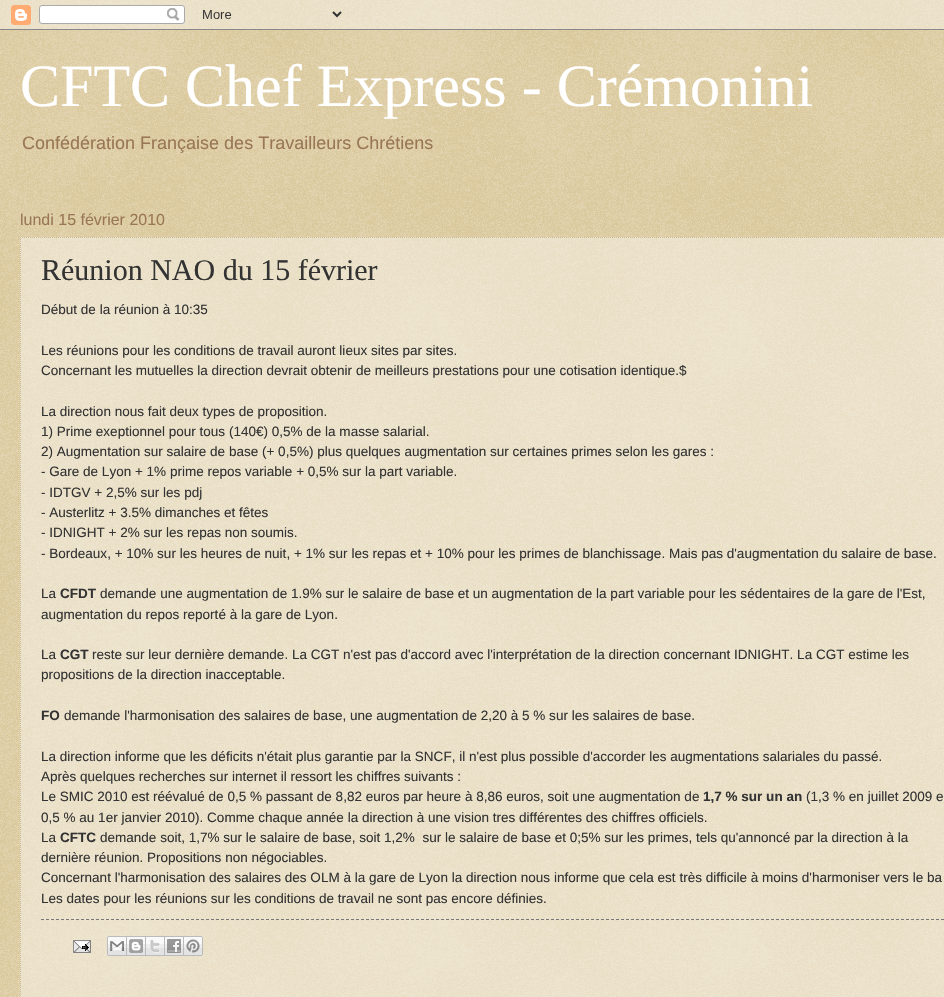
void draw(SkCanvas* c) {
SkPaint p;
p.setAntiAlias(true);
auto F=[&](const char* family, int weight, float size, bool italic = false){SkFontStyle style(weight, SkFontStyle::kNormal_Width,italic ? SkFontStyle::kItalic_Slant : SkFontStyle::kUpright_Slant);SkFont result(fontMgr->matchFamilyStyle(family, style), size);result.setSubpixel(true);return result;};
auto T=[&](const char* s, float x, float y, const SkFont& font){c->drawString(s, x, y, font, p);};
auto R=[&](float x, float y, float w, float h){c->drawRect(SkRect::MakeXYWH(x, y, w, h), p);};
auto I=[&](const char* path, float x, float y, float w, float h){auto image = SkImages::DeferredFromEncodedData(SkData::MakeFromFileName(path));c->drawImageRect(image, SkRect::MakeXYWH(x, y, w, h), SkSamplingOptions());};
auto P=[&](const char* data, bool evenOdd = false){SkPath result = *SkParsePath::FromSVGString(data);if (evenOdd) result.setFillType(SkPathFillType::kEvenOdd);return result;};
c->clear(0xffc0a154);
I("1.png",0,0,944,997);
I("2.png",0,0,944,30);
auto f1 = F("Liberation Serif",400,60);
p.setColor(0xffffffff);
T("CFTC Chef Express - Crémonini",20,106,f1);
auto f2 = F("Liberation Sans",400,18);
p.setColor(0xff997755);
T("Confédération Française des Travailleurs Chrétiens",22,149,f2);
auto f3 = F("Liberation Sans",400,16);
T("lundi 15 février 2010",20,225,f3);
p.setColor(0x66ffffff);
R(20,237,924,760);
p.setStroke(true);
p.setStrokeWidth(1);
p.setColor(0xffccbb99);
p.setPathEffect(SkDashPathEffect::Make({{1,1}}, 0));
c->drawPath(P("M20 237.5h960"),p);
p.setPathEffect(nullptr);
p.setPathEffect(SkDashPathEffect::Make({{1,1}}, 0));
c->drawPath(P("M20.5 237v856"),p);
p.setPathEffect(nullptr);
auto f4 = F("Liberation Serif",400,30);
p.setStroke(false);
p.setColor(0xff333333);
T("Réunion NAO du 15 février",41,280,f4);
auto f5 = F("Liberation Sans",400,13.52);
T("Début de la réunion à 10:35",41,314,f5);
T("Les réunions pour les conditions de travail auront lieux sites par sites.",41,355,f5);
T("Concernant les mutuelles la direction devrait obtenir de meilleurs prestations pour une cotisation identique.$",41,375,f5);
T("La direction nous fait deux types de proposition.",41,416,f5);
T("1) Prime exeptionnel pour tous (140€) 0,5% de la masse salarial.",41,436,f5);
T("2) Augmentation sur salaire de base (+ 0,5%) plus quelques augmentation sur certaines primes selon les gares :",41,456,f5);
T("- Gare de Lyon + 1% prime repos variable + 0,5% sur la part variable.",41,476,f5);
T("- IDTGV + 2,5% sur les pdj",41,497,f5);
T("- Austerlitz + 3.5% dimanches et fêtes",41,517,f5);
T("- IDNIGHT + 2% sur les repas non soumis.",41,537,f5);
T("- Bordeaux, + 10% sur les heures de nuit, + 1% sur les repas et + 10% pour les primes de blanchissage. Mais pas d'augmentation du salaire de base.",41,558,f5);
T("La",41,598,f5);
auto f6 = F("Liberation Sans",700,13.52);
T("CFDT",60,598,f6);
T("demande une augmentation de 1.9% sur le salaire de base et un augmentation de la part variable pour les sédentaires de la gare de l'Est,",100,598,f5);
T("augmentation du repos reporté à la gare de Lyon.",41,619,f5);
T("La",41,659,f5);
T("CGT",60,659,f6);
T("reste sur leur dernière demande. La CGT n'est pas d'accord avec l'interprétation de la direction concernant IDNIGHT. La CGT estime les",92,659,f5);
T("propositions de la direction inacceptable.",41,679,f5);
T("FO",41,720,f6);
T("demande l'harmonisation des salaires de base, une augmentation de 2,20 à 5 % sur les salaires de base.",64,720,f5);
T("La direction informe que les déficits n'était plus garantie par la SNCF, il n'est plus possible d'accorder les augmentations salariales du passé.",41,761,f5);
T("Après quelques recherches sur internet il ressort les chiffres suivants :",41,781,f5);
T("Le SMIC 2010 est réévalué de 0,5 % passant de 8,82 euros par heure à 8,86 euros, soit une augmentation de",41,801,f5);
T("1,7 % sur un an",703,801,f6);
T("(1,3 % en juillet 2009 e",806,801,f5);
T("0,5 % au 1er janvier 2010). Comme chaque année la direction à une vision tres différentes des chiffres officiels.",41,822,f5);
T("La",41,842,f5);
T("CFTC",60,842,f6);
T("demande soit, 1,7% sur le salaire de base, soit 1,2%  sur le salaire de base et 0;5% sur les primes, tels qu'annoncé par la direction à la",100,842,f5);
T("dernière réunion. Propositions non négociables.",41,862,f5);
T("Concernant l'harmonisation des salaires des OLM à la gare de Lyon la direction nous informe que cela est très difficile à moins d'harmoniser vers le ba",41,882,f5);
T("Les dates pour les réunions sur les conditions de travail ne sont pas encore définies.",41,903,f5);
p.setStroke(true);
p.setColor(0xff777777);
p.setPathEffect(SkDashPathEffect::Make({{3,2}}, 0));
c->drawPath(P("M41 919.5h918"),p);
p.setPathEffect(nullptr);
I("3.png",73,940,18,13);
I("4.png",107,936,20,20);
I("5.png",127,936,19,20);
I("6.png",146,936,19,20);
I("7.png",165,936,19,20);
I("8.png",184,936,19,20);
}
